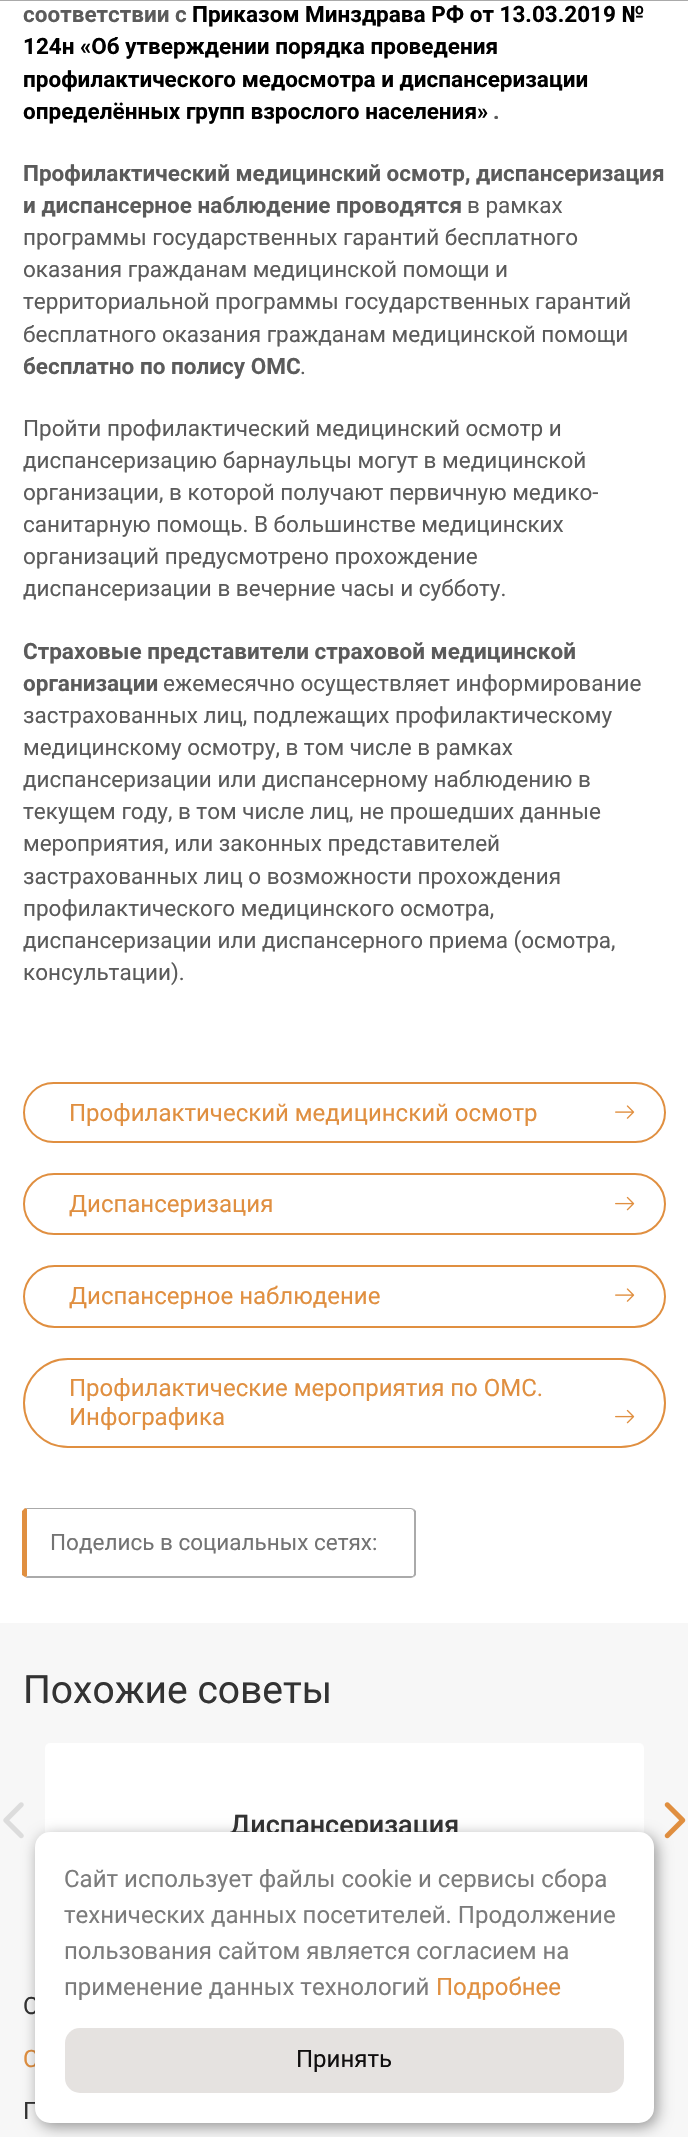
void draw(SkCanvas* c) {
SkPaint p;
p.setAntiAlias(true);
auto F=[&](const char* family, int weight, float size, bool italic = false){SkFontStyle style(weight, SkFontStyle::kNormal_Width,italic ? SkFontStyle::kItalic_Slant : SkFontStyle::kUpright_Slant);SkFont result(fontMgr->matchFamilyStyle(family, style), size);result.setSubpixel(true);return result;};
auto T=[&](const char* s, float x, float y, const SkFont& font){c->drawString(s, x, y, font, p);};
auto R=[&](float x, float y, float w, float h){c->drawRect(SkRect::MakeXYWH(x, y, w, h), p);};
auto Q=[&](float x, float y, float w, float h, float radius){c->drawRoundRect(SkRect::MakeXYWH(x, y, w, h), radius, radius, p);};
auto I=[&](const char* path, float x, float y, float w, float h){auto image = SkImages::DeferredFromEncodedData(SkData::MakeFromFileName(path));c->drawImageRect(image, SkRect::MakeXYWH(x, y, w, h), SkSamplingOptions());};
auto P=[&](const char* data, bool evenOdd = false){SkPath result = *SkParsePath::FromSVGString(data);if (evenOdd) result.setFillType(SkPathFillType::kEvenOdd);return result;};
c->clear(0xffffffff);
p.setColor(0xffaaaaaa);
R(0,0,688,1);
auto f1 = F("Roboto",700,22.5);
p.setColor(0xff5b5b5b);
T("соответствии с",23,22,f1);
p.setColor(0xff000000);
T("Приказом Минздрава РФ от 13.03.2019 №",192,22,f1);
T("124н «Об утверждении порядка проведения",23,54,f1);
T("профилактического медосмотра и диспансеризации",23,87,f1);
T("определённых групп взрослого населения»",23,119,f1);
p.setColor(0xff5b5b5b);
T(".",493,119,f1);
T("Профилактический медицинский осмотр, диспансеризация",23,181,f1);
T("и диспансерное наблюдение проводятся",23,213,f1);
auto f2 = F("Roboto",400,22.5);
T("в рамках",467,213,f2);
T("программы государственных гарантий бесплатного",23,245,f2);
T("оказания гражданам медицинской помощи и",23,277,f2);
T("территориальной программы государственных гарантий",23,309,f2);
T("бесплатного оказания гражданам медицинской помощи",23,342,f2);
T("бесплатно по полису ОМС",23,374,f1);
T(".",300,374,f2);
T("Пройти профилактический медицинский осмотр и",23,436,f2);
T("диспансеризацию барнаульцы могут в медицинской",23,468,f2);
T("организации, в которой получают первичную медико-",23,500,f2);
T("санитарную помощь. В большинстве медицинских",23,532,f2);
T("организаций предусмотрено прохождение",23,564,f2);
T("диспансеризации в вечерние часы и субботу.",23,596,f2);
T("Страховые представители страховой медицинской",23,659,f1);
T("организации",23,691,f1);
T("ежемесячно осуществляет информирование",163,691,f2);
T("застрахованных лиц, подлежащих профилактическому",23,723,f2);
T("медицинскому осмотру, в том числе в рамках",23,755,f2);
T("диспансеризации или диспансерному наблюдению в",23,787,f2);
T("текущем году, в том числе лиц, не прошедших данные",23,819,f2);
T("мероприятия, или законных представителей",23,851,f2);
T("застрахованных лиц о возможности прохождения",23,884,f2);
T("профилактического медицинского осмотра,",23,916,f2);
T("диспансеризации или диспансерного приема (осмотра,",23,948,f2);
T("консультации).",23,980,f2);
p.setStroke(true);
p.setStrokeWidth(2);
p.setColor(0xffe08f40);
c->drawRoundRect(SkRect::MakeXYWH(24,1083,641,59),29.5,29.5,p);
auto f3 = F("Roboto",400,24);
p.setStroke(false);
T("Профилактический медицинский осмотр",69,1121,f3);
I("1.png",615,1105,20,14);
p.setStroke(true);
c->drawRoundRect(SkRect::MakeXYWH(24,1174,641,60),30,30,p);
p.setStroke(false);
T("Диспансеризация",69,1212,f3);
I("2.png",615,1196,20,15);
p.setStroke(true);
c->drawRoundRect(SkRect::MakeXYWH(24,1266,641,61),30.5,30.5,p);
p.setStroke(false);
T("Диспансерное наблюдение",69,1304,f3);
I("1.png",615,1288,20,14);
p.setStroke(true);
c->drawRoundRect(SkRect::MakeXYWH(24,1359,641,88),44,44,p);
p.setStroke(false);
T("Профилактические мероприятия по ОМС.",69,1396,f3);
T("Инфографика",69,1425,f3);
I("2.png",615,1409,20,15);
p.setColor(0xffaaaaaa);
c->drawPath(P("M27 1508h-2l2 1h384l2 1l1-1l-3-1z"),p);
c->drawPath(P("M416 1575l-2 2l-1-1l1-2v-62l-1-2l1-1l2 2z"),p);
c->drawPath(P("M27 1578h384l3-1l-1-1h-2h-383l-3 1z"),p);
p.setColor(0xffe08f40);
c->drawPath(P("M27 1509v67h1l-3 1l-3-2v-64l3-3z"),p);
p.setColor(0xff737373);
T("Поделись в социальных сетях:",50,1550,f2);
p.setColor(0xfff7f7f7);
R(0,1623,688,514);
auto f4 = F("Roboto",400,39);
p.setColor(0xff333333);
T("Похожие советы",23,1703,f4);
I("3.png",3,1802,21,37);
p.setColor(0xffffffff);
Q(45,1743,599,158,5);
auto f5 = F("Roboto",500,27);
p.setColor(0xff333333);
T("Диспансеризация",230,1834,f5);
I("4.png",664,1802,22,37);
T("О",23,2014,f3);
p.setColor(0xffe08f40);
T("С",23,2067,f3);
p.setColor(0xff333333);
T("Г",23,2119,f3);
p.setColor(0x66000000);
p.setMaskFilter(SkMaskFilter::MakeBlur(kNormal_SkBlurStyle, 7.5));
c->drawRoundRect(SkRect::MakeXYWH(38,1836,619,291),15,15,p);
p.setMaskFilter(nullptr);
p.setColor(0xffffffff);
Q(35,1832,619,291,15);
p.setColor(0xff7c7c7c);
T("Сайт использует файлы cookie и сервисы сбора",64,1887,f3);
T("технических данных посетителей. Продолжение",64,1923,f3);
T("пользования сайтом является согласием на",64,1959,f3);
T("применение данных технологий",64,1995,f3);
p.setColor(0xffe08f40);
T("Подробнее",436,1995,f3);
p.setColor(0xffe5e2e0);
Q(65,2028,559,65,15);
p.setColor(0xff100e0e);
T("Принять",296,2067,f3);
}
